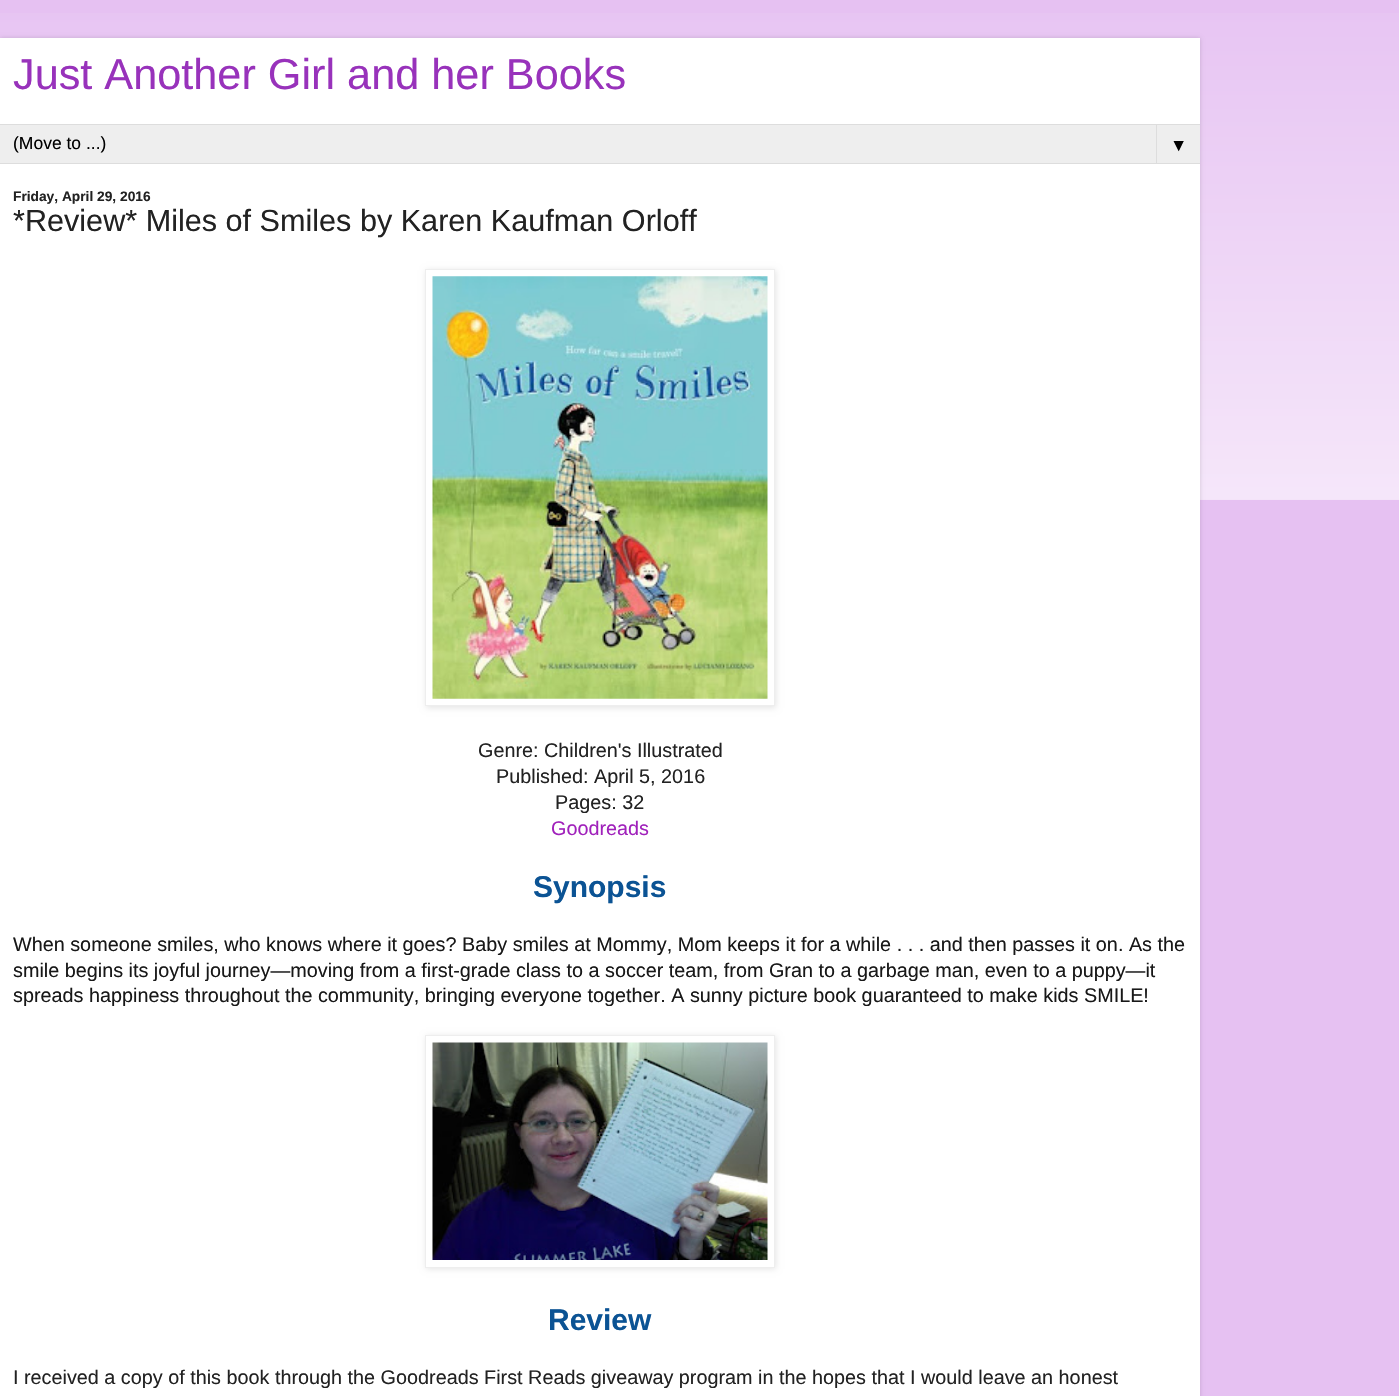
void draw(SkCanvas* c) {
SkPaint p;
p.setAntiAlias(true);
auto F=[&](const char* family, int weight, float size, bool italic = false){SkFontStyle style(weight, SkFontStyle::kNormal_Width,italic ? SkFontStyle::kItalic_Slant : SkFontStyle::kUpright_Slant);SkFont result(fontMgr->matchFamilyStyle(family, style), size);result.setSubpixel(true);return result;};
auto T=[&](const char* s, float x, float y, const SkFont& font){c->drawString(s, x, y, font, p);};
auto R=[&](float x, float y, float w, float h){c->drawRect(SkRect::MakeXYWH(x, y, w, h), p);};
auto I=[&](const char* path, float x, float y, float w, float h){auto image = SkImages::DeferredFromEncodedData(SkData::MakeFromFileName(path));c->drawImageRect(image, SkRect::MakeXYWH(x, y, w, h), SkSamplingOptions());};
auto P=[&](const char* data, bool evenOdd = false){SkPath result = *SkParsePath::FromSVGString(data);if (evenOdd) result.setFillType(SkPathFillType::kEvenOdd);return result;};
c->clear(0xffe6c1f2);
I("1.png",0,13,1399,487);
p.setColor(0x26000000);
p.setMaskFilter(SkMaskFilter::MakeBlur(kNormal_SkBlurStyle, 2));
c->drawRect(SkRect::MakeXYWH(0,38,1200,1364),p);
p.setMaskFilter(nullptr);
p.setColor(0xffffffff);
R(0,38,1200,1358);
auto f1 = F("Liberation Sans",400,43.25);
p.setColor(0xff9832bb);
T("Just Another Girl and her Books",13,89,f1);
p.setColor(0xffeeeeee);
R(0,125,1200,38);
p.setColor(0xffdddddd);
R(0,124,1200,1);
R(0,163,1200,1);
auto f2 = F("Liberation Sans",400,17.5);
p.setColor(0xff000000);
T("(Move to ...)",13,149,f2);
p.setColor(0xffdddddd);
R(1156,124,1,40);
p.setColor(0xff000000);
T("▼",1170,151,f2);
auto f3 = F("Liberation Sans",700,13.75);
p.setColor(0xff222222);
T("Friday, April 29, 2016",13,201,f3);
auto f4 = F("Liberation Sans",400,30.6);
T("*Review* Miles of Smiles by Karen Kaufman Orloff",13,231,f4);
c->save();
c->clipPath(P("M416 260h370v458h-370zm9 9h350v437h-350z",true),true);
p.setColor(0x1a000000);
p.setMaskFilter(SkMaskFilter::MakeBlur(kNormal_SkBlurStyle, 3));
c->drawRect(SkRect::MakeXYWH(426,270,350,438),p);
p.setMaskFilter(nullptr);
c->restore();
p.setStroke(true);
p.setStrokeWidth(1);
p.setColor(0xffeeeeee);
c->drawRect(SkRect::MakeXYWH(425.5,269.5,349,436),p);
I("2.png",432,276,336,423);
auto f5 = F("Liberation Sans",400,19.8);
p.setStroke(false);
p.setColor(0xff222222);
T("Genre: Children's Illustrated",478,757,f5);
T("Published: April 5, 2016",496,783,f5);
T("Pages: 32",555,809,f5);
p.setColor(0xffa021bb);
T("Goodreads",551,835,f5);
auto f6 = F("Liberation Sans",700,30);
p.setColor(0xff0b5394);
T("Synopsis",533,897,f6);
p.setColor(0xff181818);
T("When someone smiles, who knows where it goes? Baby smiles at Mommy, Mom keeps it for a while . . . and then passes it on. As the",13,951,f5);
T("smile begins its joyful journey—moving from a first-grade class to a soccer team, from Gran to a garbage man, even to a puppy—it",13,977,f5);
T("spreads happiness throughout the community, bringing everyone together. A sunny picture book guaranteed to make kids SMILE!",13,1002,f5);
p.setColor(0x1a000000);
p.setMaskFilter(SkMaskFilter::MakeBlur(kNormal_SkBlurStyle, 3));
c->drawRect(SkRect::MakeXYWH(426,1036,350,233),p);
p.setMaskFilter(nullptr);
p.setColor(0xffffffff);
c->drawRect(SkRect::MakeXYWH(425.5,1035.5,349,232),p);
p.setStroke(true);
p.setColor(0xffeeeeee);
c->drawRect(SkRect::MakeXYWH(425.5,1035.5,349,232),p);
I("3.png",432,1042,336,218);
p.setStroke(false);
p.setColor(0xff0b5394);
T("Review",548,1330,f6);
p.setColor(0xff222222);
T("I received a copy of this book through the Goodreads First Reads giveaway program in the hopes that I would leave an honest",13,1384,f5);
}
